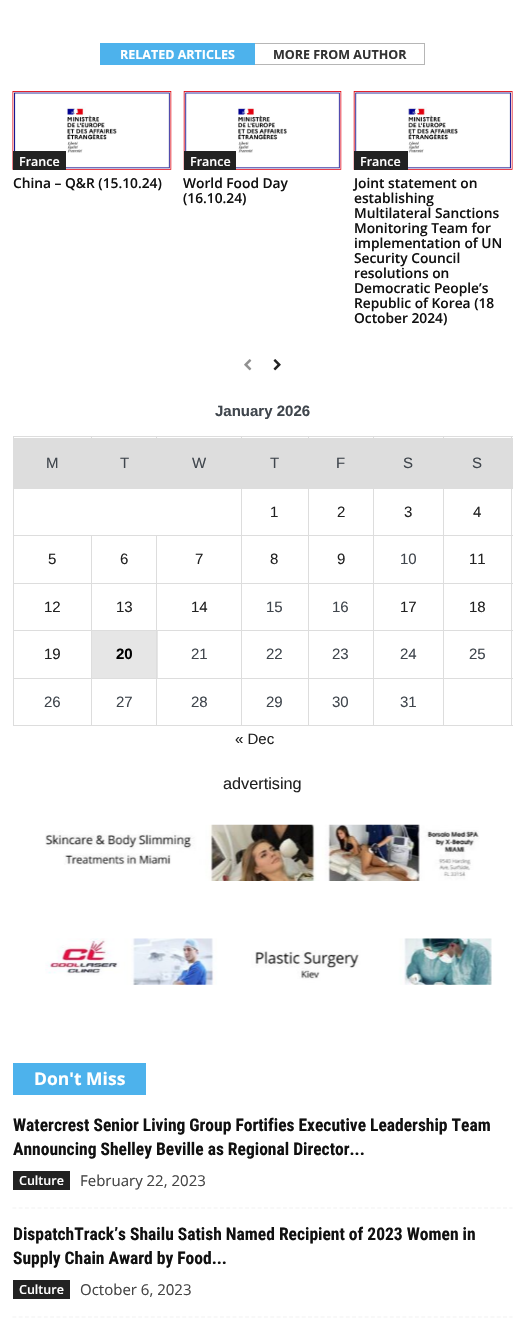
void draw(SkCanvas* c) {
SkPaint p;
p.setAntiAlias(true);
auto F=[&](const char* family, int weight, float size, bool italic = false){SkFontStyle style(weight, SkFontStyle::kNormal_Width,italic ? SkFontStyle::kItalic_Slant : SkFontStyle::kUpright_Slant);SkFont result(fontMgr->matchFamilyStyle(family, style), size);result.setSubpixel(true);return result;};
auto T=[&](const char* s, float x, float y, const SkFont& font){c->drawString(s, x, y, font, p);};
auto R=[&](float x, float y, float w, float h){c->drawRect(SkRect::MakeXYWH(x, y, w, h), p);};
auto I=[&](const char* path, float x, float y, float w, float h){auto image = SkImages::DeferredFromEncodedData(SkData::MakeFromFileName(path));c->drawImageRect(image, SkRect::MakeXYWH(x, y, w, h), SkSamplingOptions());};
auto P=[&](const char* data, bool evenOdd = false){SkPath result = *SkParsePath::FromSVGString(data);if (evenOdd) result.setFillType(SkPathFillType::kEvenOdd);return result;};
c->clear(0xffffffff);
p.setColor(0xff4db2ec);
R(100,43,155,22);
auto f1 = F("Open Sans",700,12.5);
p.setColor(0xffffffff);
T("RELATED ARTICLES",120,59,f1);
p.setColor(0xff333333);
T("MORE FROM AUTHOR",273,59,f1);
p.setColor(0xffb6b6b6);
R(255,43,170,1);
R(424,43,1,22);
R(255,64,170,1);
I("1.png",12,91,160,79);
p.setColor(0xff222222);
R(13,151,53,19);
auto f2 = F("Open Sans",600,12.5);
p.setColor(0xffffffff);
T("France",19,166,f2);
auto f3 = F("Open Sans",600,13.75);
p.setColor(0xff111111);
T("China – Q&R (15.10.24)",13,188,f3);
I("2.png",183,91,159,79);
p.setColor(0xff222222);
R(184,151,52,19);
p.setColor(0xffffffff);
T("France",190,166,f2);
p.setColor(0xff111111);
T("World Food Day",183,188,f3);
T("(16.10.24)",183,203,f3);
I("3.png",353,91,160,79);
p.setColor(0xff222222);
R(354,151,54,19);
p.setColor(0xffffffff);
T("France",360,166,f2);
p.setColor(0xff111111);
T("Joint statement on",354,188,f3);
T("establishing",354,203,f3);
T("Multilateral Sanctions",354,218,f3);
T("Monitoring Team for",354,233,f3);
T("implementation of UN",354,248,f3);
T("Security Council",354,263,f3);
T("resolutions on",354,278,f3);
T("Democratic People’s",354,293,f3);
T("Republic of Korea (18",354,308,f3);
T("October 2024)",354,323,f3);
I("4.png",244,359,8,12);
I("5.png",273,359,8,12);
auto f4 = F("Liberation Sans",700,15);
p.setColor(0xff40464d);
T("January 2026",215,416,f4);
p.setColor(0xffdddddd);
R(14,438,77,50);
R(443,436,70,1);
R(443,488,70,1);
R(443,535,70,1);
R(443,583,70,1);
R(443,630,70,1);
R(443,678,70,1);
R(511,678,1,48);
R(443,725,70,1);
R(443,678,1,48);
R(373,678,71,1);
R(443,630,1,49);
R(373,630,71,1);
R(443,583,1,48);
R(373,583,71,1);
R(443,535,1,49);
R(373,535,71,1);
R(443,488,1,48);
R(373,488,71,1);
R(443,436,1,53);
R(373,436,71,1);
R(373,725,71,1);
R(373,678,1,48);
R(308,678,66,1);
R(373,630,1,49);
R(308,630,66,1);
R(373,583,1,48);
R(308,583,66,1);
R(373,535,1,49);
R(308,535,66,1);
R(373,488,1,48);
R(308,488,66,1);
R(373,436,1,53);
R(308,436,66,1);
R(308,725,66,1);
R(308,678,1,48);
R(241,678,68,1);
R(308,630,1,49);
R(241,630,68,1);
R(308,583,1,48);
R(241,583,68,1);
R(308,535,1,49);
R(241,535,68,1);
R(308,488,1,48);
R(241,488,68,1);
R(308,436,1,53);
R(241,436,68,1);
R(241,725,68,1);
R(241,678,1,48);
R(156,678,87,1);
R(241,630,1,49);
R(156,630,87,1);
R(241,583,1,48);
R(156,583,87,1);
R(241,535,1,49);
R(156,535,87,1);
R(241,488,1,48);
R(13,488,230,1);
R(241,436,1,53);
R(156,436,87,1);
R(156,436,1,2);
R(91,436,67,1);
R(91,436,1,53);
R(13,436,80,1);
p.setColor(0xffe6e6e6);
R(92,631,66,47);
p.setColor(0xffdddddd);
R(156,725,87,1);
R(156,678,1,48);
R(91,678,67,1);
R(156,630,1,49);
R(91,630,67,1);
R(156,583,1,48);
R(91,583,67,1);
R(156,535,1,49);
R(91,535,67,1);
R(91,725,67,1);
R(91,678,1,48);
R(13,678,80,1);
R(91,630,1,49);
R(13,630,80,1);
R(91,583,1,48);
R(13,583,80,1);
R(91,535,1,49);
R(13,535,80,1);
R(13,725,80,1);
R(13,678,1,48);
R(13,630,1,49);
R(13,583,1,48);
R(13,535,1,49);
R(13,488,1,48);
R(13,436,1,53);
auto f5 = F("Liberation Sans",400,15);
p.setColor(0xff40464d);
T("M",46,468,f5);
p.setColor(0xffdddddd);
R(92,438,149,50);
p.setColor(0xff40464d);
T("T",120,468,f5);
T("W",192,468,f5);
p.setColor(0xffdddddd);
R(242,438,66,50);
p.setColor(0xff40464d);
T("T",270,468,f5);
p.setColor(0xffdddddd);
R(309,438,64,50);
p.setColor(0xff40464d);
T("F",336,468,f5);
p.setColor(0xffdddddd);
R(374,438,69,50);
p.setColor(0xff40464d);
T("S",403,468,f5);
p.setColor(0xffdddddd);
R(444,438,69,50);
R(511,436,1,2);
p.setColor(0xff40464d);
T("S",472,468,f5);
p.setColor(0xff222222);
T("1",270,517,f5);
T("2",337,517,f5);
T("3",404,517,f5);
p.setColor(0xffdddddd);
R(511,630,1,49);
R(511,583,1,48);
R(511,535,1,49);
R(511,488,1,48);
p.setColor(0xff222222);
T("4",473,517,f5);
T("5",48,564,f5);
T("6",120,564,f5);
T("7",195,564,f5);
T("8",270,564,f5);
T("9",337,564,f5);
p.setColor(0xff40464d);
T("10",400,564,f5);
p.setColor(0xff222222);
T("11",469,564,f5);
T("12",44,612,f5);
T("13",116,612,f5);
T("14",191,612,f5);
p.setColor(0xff40464d);
T("15",266,612,f5);
T("16",332,612,f5);
p.setColor(0xff222222);
T("17",400,612,f5);
T("18",469,612,f5);
T("19",44,659,f5);
p.setColor(0xff000000);
T("20",116,659,f4);
p.setColor(0xff40464d);
T("21",191,659,f5);
T("22",266,659,f5);
T("23",332,659,f5);
T("24",400,659,f5);
T("25",469,659,f5);
T("26",44,707,f5);
T("27",116,707,f5);
T("28",191,707,f5);
T("29",266,707,f5);
T("30",332,707,f5);
T("31",400,707,f5);
p.setColor(0xff222222);
T("« Dec",235,744,f5);
auto f6 = F("Liberation Sans",400,16.25);
T("advertising",223,789,f6);
I("6.png",45,824,435,57);
I("7.png",45,938,447,47);
p.setColor(0xff4db2ec);
R(13,1063,133,32);
auto f7 = F("Open Sans",700,17.5);
p.setColor(0xffffffff);
T("Don't Miss",34,1085,f7);
p.setStroke(true);
p.setStrokeWidth(1.2);
p.setColor(0xfff1f1f1);
p.setPathEffect(SkDashPathEffect::Make({{3.75f,2.54f}}, 0));
c->drawPath(P("M12.5 1208h500"),p);
p.setPathEffect(nullptr);
auto f8 = F("Roboto Condensed",700,17.5);
p.setStroke(false);
p.setColor(0xff111111);
T("Watercrest Senior Living Group Fortifies Executive Leadership Team",13,1131,f8);
T("Announcing Shelley Beville as Regional Director...",13,1155,f8);
p.setColor(0xff222222);
R(13,1171,57,19);
p.setColor(0xffffffff);
T("Culture",19,1185,f2);
auto f9 = F("Open Sans",400,15);
p.setColor(0xff444444);
T("February 22, 2023",80,1186,f9);
p.setStroke(true);
p.setColor(0xfff1f1f1);
p.setPathEffect(SkDashPathEffect::Make({{3.75f,2.54f}}, 0));
c->drawPath(P("M12.5 1317h500"),p);
p.setPathEffect(nullptr);
p.setStroke(false);
p.setColor(0xff111111);
T("DispatchTrack’s Shailu Satish Named Recipient of 2023 Women in",13,1240,f8);
T("Supply Chain Award by Food...",13,1264,f8);
p.setColor(0xff222222);
R(13,1280,57,19);
p.setColor(0xffffffff);
T("Culture",19,1294,f2);
p.setColor(0xff444444);
T("October 6, 2023",80,1295,f9);
}
